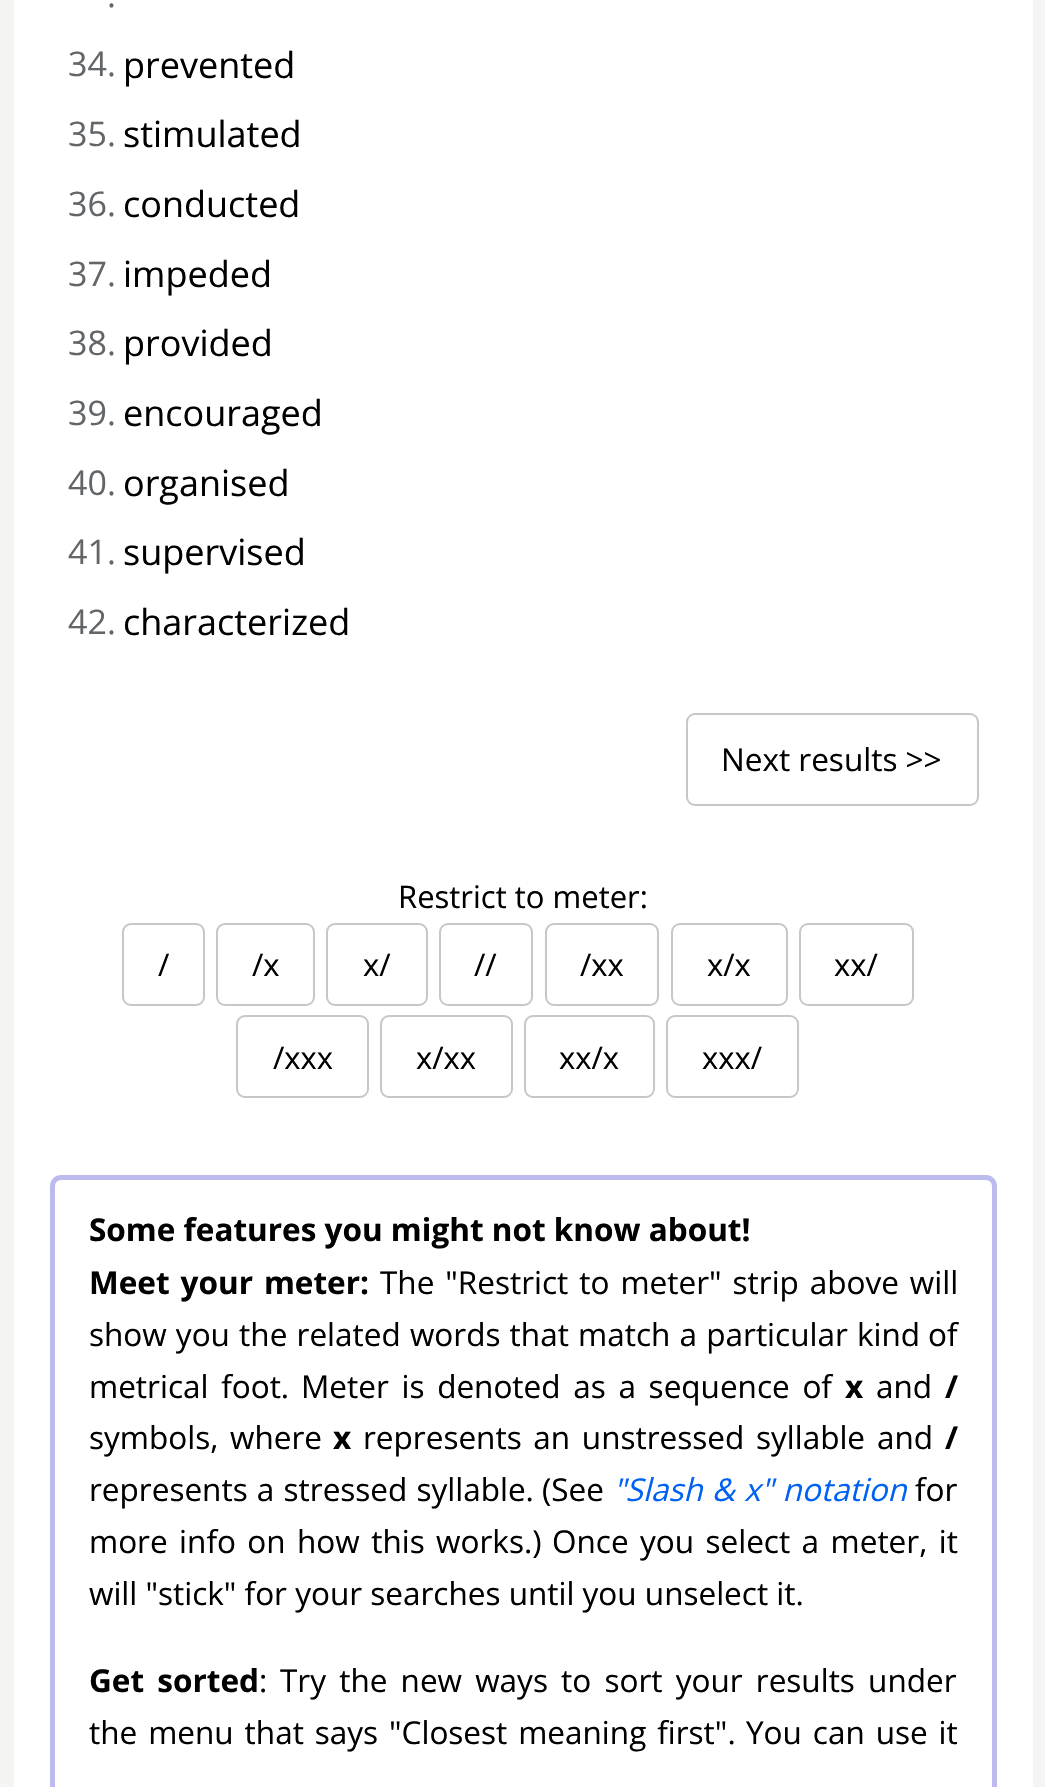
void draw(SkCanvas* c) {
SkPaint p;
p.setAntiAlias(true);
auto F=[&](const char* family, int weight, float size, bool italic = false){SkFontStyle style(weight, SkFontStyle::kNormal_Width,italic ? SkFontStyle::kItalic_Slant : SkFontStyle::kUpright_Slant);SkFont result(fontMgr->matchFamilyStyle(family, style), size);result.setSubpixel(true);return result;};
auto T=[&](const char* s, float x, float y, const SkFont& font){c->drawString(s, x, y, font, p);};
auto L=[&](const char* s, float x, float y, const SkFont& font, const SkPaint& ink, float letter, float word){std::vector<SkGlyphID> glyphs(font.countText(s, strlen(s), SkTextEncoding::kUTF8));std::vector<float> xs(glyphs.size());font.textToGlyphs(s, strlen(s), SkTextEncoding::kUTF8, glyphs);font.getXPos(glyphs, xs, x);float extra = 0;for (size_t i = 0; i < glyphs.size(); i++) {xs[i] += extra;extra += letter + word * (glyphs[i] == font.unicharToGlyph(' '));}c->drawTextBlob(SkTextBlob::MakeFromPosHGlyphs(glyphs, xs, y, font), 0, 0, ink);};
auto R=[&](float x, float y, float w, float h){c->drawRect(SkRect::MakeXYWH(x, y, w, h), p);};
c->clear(0xffffffff);
p.setColor(0x1a231f03);
p.setMaskFilter(SkMaskFilter::MakeBlur(kNormal_SkBlurStyle, 90));
c->drawRoundRect(SkRect::MakeXYWH(14,-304,1019,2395),34,34,p);
p.setMaskFilter(nullptr);
p.setColor(0xffffffff);
R(14,0,1019,1787);
auto f1 = F("Open Sans",400,34);
p.setColor(0xff636669);
T(".",107,7,f1);
T("34.",68,76,f1);
auto f2 = F("Open Sans",400,36);
p.setColor(0xff000000);
T("prevented",123,78,f2);
p.setColor(0xff636669);
T("35.",68,146,f1);
p.setColor(0xff000000);
T("stimulated",123,147,f2);
p.setColor(0xff636669);
T("36.",68,216,f1);
p.setColor(0xff000000);
T("conducted",123,217,f2);
p.setColor(0xff636669);
T("37.",68,286,f1);
p.setColor(0xff000000);
T("impeded",123,287,f2);
p.setColor(0xff636669);
T("38.",68,355,f1);
p.setColor(0xff000000);
T("provided",123,356,f2);
p.setColor(0xff636669);
T("39.",68,425,f1);
p.setColor(0xff000000);
T("encouraged",123,426,f2);
p.setColor(0xff636669);
T("40.",68,495,f1);
p.setColor(0xff000000);
T("organised",123,496,f2);
p.setColor(0xff636669);
T("41.",68,564,f1);
p.setColor(0xff000000);
T("supervised",123,565,f2);
p.setColor(0xff636669);
T("42.",68,634,f1);
p.setColor(0xff000000);
T("characterized",123,635,f2);
p.setStroke(true);
p.setStrokeWidth(2);
p.setColor(0xffc5c7c9);
c->drawRoundRect(SkRect::MakeXYWH(687,714,291,91),8,8,p);
auto f3 = F("Open Sans",400,31.5);
p.setStroke(false);
p.setColor(0xff000000);
T("Next results >>",721,771,f3);
auto f4 = F("Open Sans",400,31);
T("Restrict to meter:",398,908,f4);
p.setStroke(true);
p.setColor(0xffc5c7c9);
c->drawRoundRect(SkRect::MakeXYWH(123,924,81,81),8,8,p);
p.setStroke(false);
p.setColor(0xff000000);
T("/",158,976,f4);
p.setStroke(true);
p.setColor(0xffc5c7c9);
c->drawRoundRect(SkRect::MakeXYWH(217,924,97,81),8,8,p);
p.setStroke(false);
p.setColor(0xff000000);
T("/x",252,976,f4);
p.setStroke(true);
p.setColor(0xffc5c7c9);
c->drawRoundRect(SkRect::MakeXYWH(327,924,100,81),8,8,p);
p.setStroke(false);
p.setColor(0xff000000);
T("x/",363,976,f4);
p.setStroke(true);
p.setColor(0xffc5c7c9);
c->drawRoundRect(SkRect::MakeXYWH(440,924,92,81),8,8,p);
p.setStroke(false);
p.setColor(0xff000000);
T("//",474,976,f4);
p.setStroke(true);
p.setColor(0xffc5c7c9);
c->drawRoundRect(SkRect::MakeXYWH(546,924,112,81),8,8,p);
p.setStroke(false);
p.setColor(0xff000000);
T("/xx",580,976,f4);
p.setStroke(true);
p.setColor(0xffc5c7c9);
c->drawRoundRect(SkRect::MakeXYWH(672,924,115,81),8,8,p);
p.setStroke(false);
p.setColor(0xff000000);
T("x/x",707,976,f4);
p.setStroke(true);
p.setColor(0xffc5c7c9);
c->drawRoundRect(SkRect::MakeXYWH(800,924,113,81),8,8,p);
p.setStroke(false);
p.setColor(0xff000000);
T("xx/",834,976,f4);
p.setStroke(true);
p.setColor(0xffc5c7c9);
c->drawRoundRect(SkRect::MakeXYWH(237,1016,131,81),8,8,p);
p.setStroke(false);
p.setColor(0xff000000);
T("/xxx",273,1069,f4);
p.setStroke(true);
p.setColor(0xffc5c7c9);
c->drawRoundRect(SkRect::MakeXYWH(381,1016,131,81),8,8,p);
p.setStroke(false);
p.setColor(0xff000000);
T("x/xx",416,1069,f4);
p.setStroke(true);
p.setColor(0xffc5c7c9);
c->drawRoundRect(SkRect::MakeXYWH(525,1016,129,81),8,8,p);
p.setStroke(false);
p.setColor(0xff000000);
T("xx/x",559,1069,f4);
p.setStroke(true);
p.setColor(0xffc5c7c9);
c->drawRoundRect(SkRect::MakeXYWH(667,1016,131,81),8,8,p);
p.setStroke(false);
p.setColor(0xff000000);
T("xxx/",702,1069,f4);
p.setStroke(true);
p.setStrokeWidth(5);
p.setColor(0xffbbbbee);
c->drawRoundRect(SkRect::MakeXYWH(52.5,1177.5,942,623),8.5,8.5,p);
auto f5 = F("Open Sans",700,31.5);
p.setStroke(false);
p.setColor(0xff000000);
T("Some features you might not know about!",89,1241,f5);
L("Meet your meter:",89,1294,f5,p,0,2.75);
L("The \"Restrict to meter\" strip above will",380,1294,f3,p,0,2.75);
L("show you the related words that match a particular kind",89,1346,f3,p,0,1);
T("of",928,1346,f3);
L("metrical foot.",89,1398,f3,p,0,4.5);
L("Meter is denoted as a sequence of",301,1398,f3,p,0,4.5);
T("x",845,1398,f5);
T("and",876,1398,f3);
T("/",945,1398,f5);
L("symbols, where",89,1449,f3,p,0,3.5);
T("x",333,1449,f5);
L("represents an unstressed syllable",363,1449,f3,p,0,3.5);
T("and",877,1449,f3);
T("/",945,1449,f5);
L("represents a stressed syllable.",89,1501,f3,p,0,1);
T("(See",542,1501,f3);
auto f6 = F("Open Sans",400,31.5,true);
p.setColor(0xff0061f2);
L("\"Slash & x\" notation",613,1501,f6,p,0,1);
p.setColor(0xff000000);
T("for",915,1501,f3);
L("more info on how this works.)",89,1553,f3,p,0,3.25);
L("Once you select a meter, it",552,1553,f3,p,0,3.25);
T("will \"stick\" for your searches until you unselect it.",89,1605,f3);
L("Get sorted",89,1692,f5,p,0,5);
T(":",259,1692,f3);
L("Try the new ways to sort your results under",280,1692,f3,p,0,5);
L("the menu that says \"Closest meaning first\".",89,1744,f3,p,0,2.75);
L("You can use it",746,1744,f3,p,0,2.75);
}
